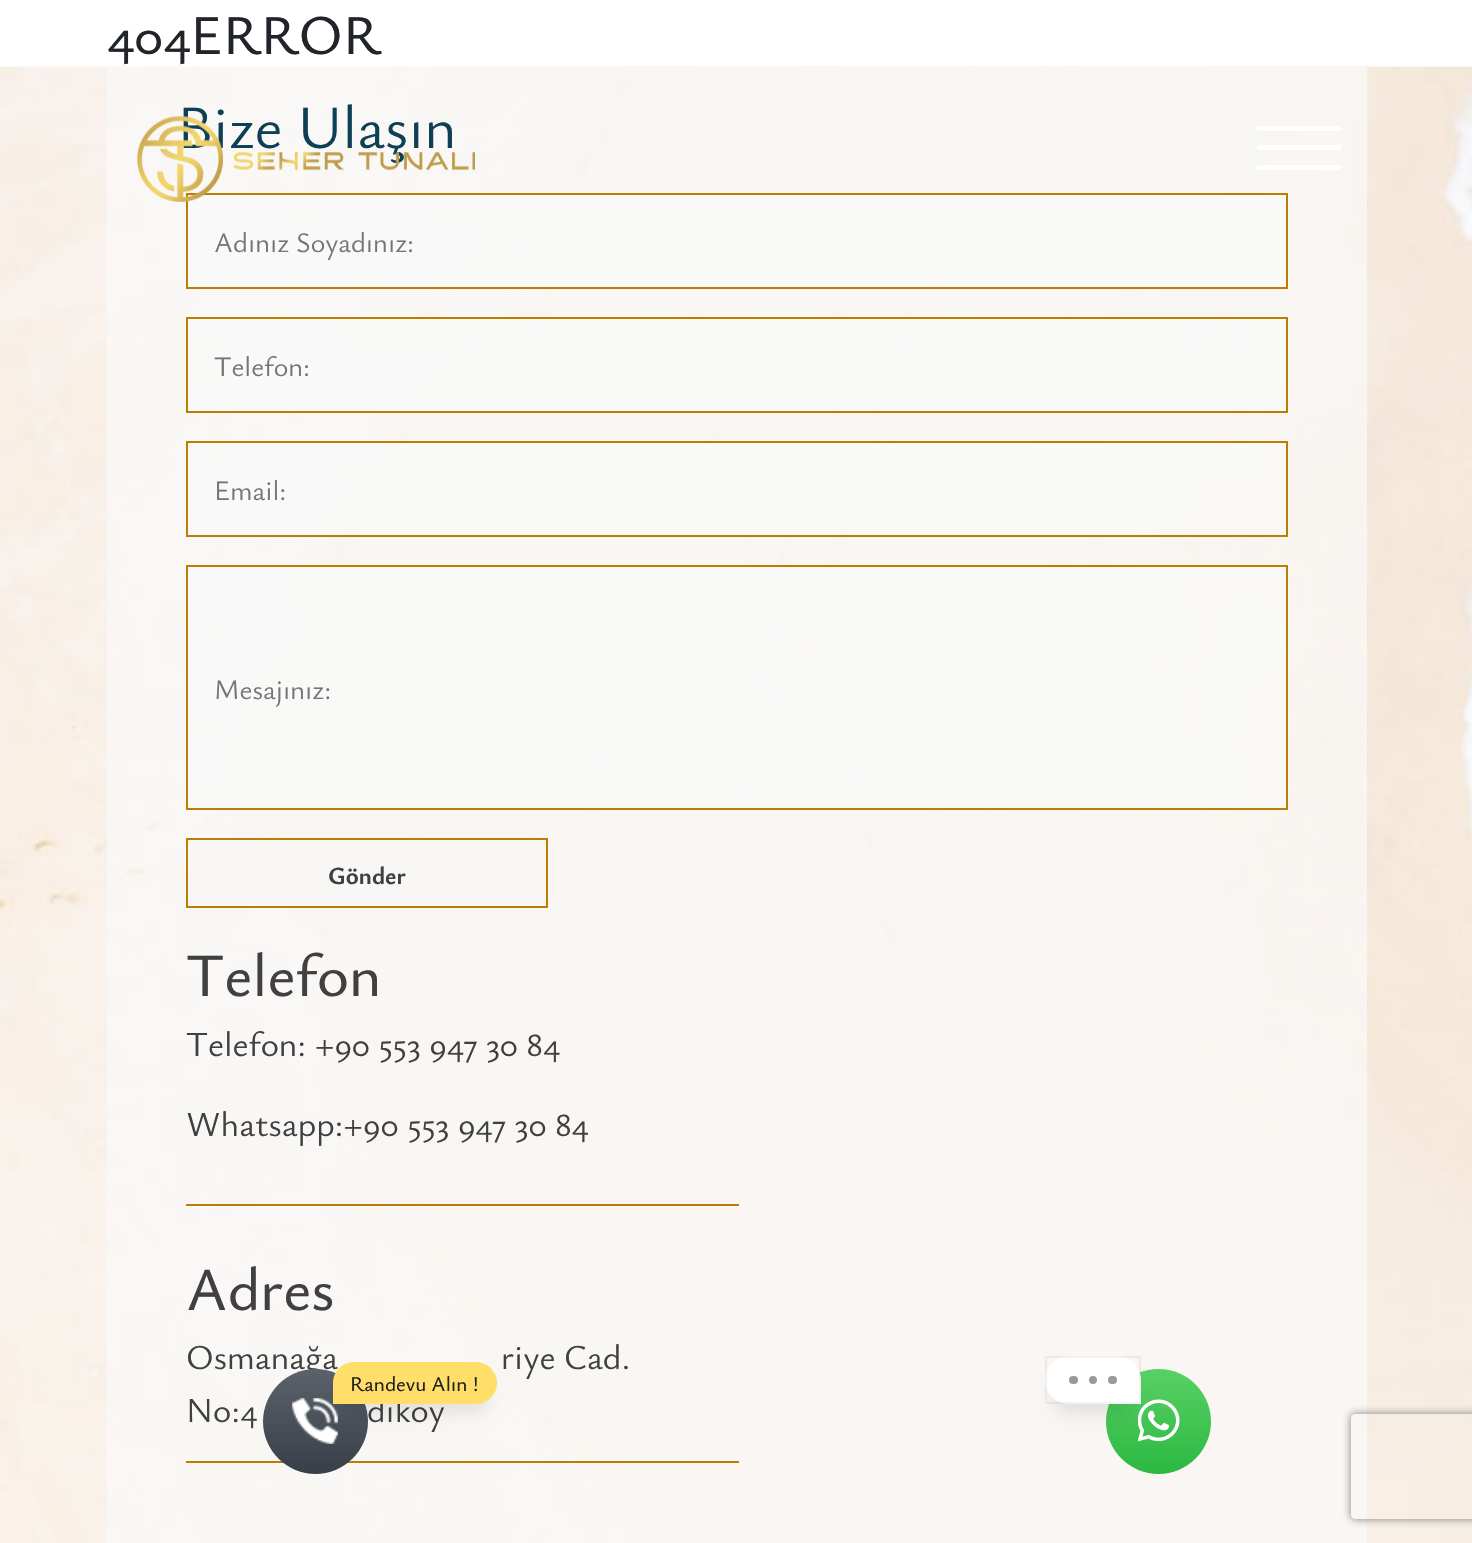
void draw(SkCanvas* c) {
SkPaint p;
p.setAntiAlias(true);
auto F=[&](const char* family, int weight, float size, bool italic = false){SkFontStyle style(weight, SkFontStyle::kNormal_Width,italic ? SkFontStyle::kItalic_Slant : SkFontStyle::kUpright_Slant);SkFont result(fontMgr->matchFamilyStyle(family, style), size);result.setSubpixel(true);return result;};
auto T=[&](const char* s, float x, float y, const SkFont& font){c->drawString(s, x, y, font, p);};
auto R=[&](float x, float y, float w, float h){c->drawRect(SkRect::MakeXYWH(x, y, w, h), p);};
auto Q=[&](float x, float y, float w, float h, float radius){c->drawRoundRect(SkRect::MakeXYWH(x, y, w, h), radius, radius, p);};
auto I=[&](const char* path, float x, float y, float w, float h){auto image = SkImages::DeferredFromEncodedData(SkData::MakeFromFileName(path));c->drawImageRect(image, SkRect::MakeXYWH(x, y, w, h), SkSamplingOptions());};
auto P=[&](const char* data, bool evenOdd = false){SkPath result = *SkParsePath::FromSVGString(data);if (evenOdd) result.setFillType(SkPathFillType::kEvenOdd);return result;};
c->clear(0xffffffff);
auto f1 = F("Ysabeau",500,56);
p.setColor(0xff212529);
T("404ERROR",107,54,f1);
I("1.png",0,66,1472,1477);
p.setColor(0xb3f9f9f9);
R(107,67,1260,1476);
auto f2 = F("Ysabeau",400,61.25);
p.setColor(0xff0d4054);
T("Bize Ulaşın",177,148,f2);
p.setColor(0xb3f9f9f9);
c->drawRect(SkRect::MakeXYWH(187,194,1100,94),p);
p.setStroke(true);
p.setStrokeWidth(2);
p.setColor(0xffbd7d00);
c->drawRect(SkRect::MakeXYWH(187,194,1100,94),p);
auto f3 = F("Ysabeau",400,28);
p.setStroke(false);
p.setColor(0xff757575);
T("Adınız Soyadınız:",214,252,f3);
p.setColor(0xb3f9f9f9);
c->drawRect(SkRect::MakeXYWH(187,318,1100,94),p);
p.setStroke(true);
p.setColor(0xffbd7d00);
c->drawRect(SkRect::MakeXYWH(187,318,1100,94),p);
p.setStroke(false);
p.setColor(0xff757575);
T("Telefon:",214,376,f3);
p.setColor(0xb3f9f9f9);
R(195,443,1091,92);
p.setStroke(true);
p.setColor(0xffbd7d00);
c->drawRect(SkRect::MakeXYWH(187,442,1100,94),p);
p.setStroke(false);
p.setColor(0xff757575);
T("Email:",214,500,f3);
p.setColor(0xb3f9f9f9);
c->drawRect(SkRect::MakeXYWH(187,566,1100,243),p);
p.setStroke(true);
p.setColor(0xffbd7d00);
c->drawRect(SkRect::MakeXYWH(187,566,1100,243),p);
p.setStroke(false);
p.setColor(0xff757575);
T("Mesajınız:",214,699,f3);
p.setColor(0xfff8f7f5);
R(191,840,355,66);
p.setStroke(true);
p.setColor(0xffbd7d00);
c->drawRect(SkRect::MakeXYWH(187,839,360,68),p);
auto f4 = F("Ysabeau",700,24.5);
p.setStroke(false);
p.setColor(0xff404040);
T("Gönder",328,884,f4);
p.setColor(0xffbd7d00);
R(186,1204,553,2);
auto f5 = F("Ysabeau",500,61.25);
p.setColor(0xff404040);
T("Telefon",186,996,f5);
auto f6 = F("Ysabeau",400,35);
T("Telefon: +90 553 947 30 84",186,1056,f6);
T("Whatsapp:+90 553 947 30 84",186,1136,f6);
p.setColor(0xffbd7d00);
R(186,1461,553,2);
p.setColor(0xff404040);
T("Adres",186,1310,f5);
T("Osmanağa",186,1369,f6);
T("riye Cad.",501,1369,f6);
T("No:4",186,1422,f6);
T("dıköy",367,1422,f6);
I("2.png",137,116,338,87);
p.setColor(0xffffffff);
R(1257,126,84,5);
R(1257,145,84,5);
R(1257,165,84,5);
{
const SkColor colors[] = {0xff5c626c,0xff393f49};
const float stops[] = {0,1};
const SkPoint ends[] = {{315,1369}, {315,1474}};
p.setShader(SkGradientShader::MakeLinear(ends, colors, stops, 2, SkTileMode::kClamp));
p.setAlpha(255);
}
c->drawCircle(315.5,1421.5,52.5,p);
I("3.png",292,1398,46,46);
p.setShader(nullptr);
p.setColor(0x1a000000);
p.setMaskFilter(SkMaskFilter::MakeBlur(kNormal_SkBlurStyle, 9));
c->drawRoundRect(SkRect::MakeXYWH(341,1388,147,24),12,12,p);
p.setMaskFilter(nullptr);
p.setColor(0xffffdf6a);
c->drawPath(P("M354 1362h122c11.5 0 21 9.5 21 21c0 11.5-9.5 21-21 21h-143v-21c0-11.5 9.5-21 21-21z"),p);
auto f7 = F("Ysabeau",500,21);
p.setColor(0xff222222);
T("Randevu Alın !",350,1391,f7);
{
const SkColor colors[] = {0xff58d164,0xff2cb842};
const float stops[] = {0,1};
const SkPoint ends[] = {{1159,1369}, {1159,1474}};
p.setShader(SkGradientShader::MakeLinear(ends, colors, stops, 2, SkTileMode::kClamp));
p.setAlpha(255);
}
c->drawCircle(1158.5,1421.5,52.5,p);
I("4.png",1138,1399,42,43);
p.setShader(nullptr);
p.setColor(0x1a000000);
p.setMaskFilter(SkMaskFilter::MakeBlur(kNormal_SkBlurStyle, 9));
c->drawRoundRect(SkRect::MakeXYWH(1054,1383,78,29),14.5,14.5,p);
p.setMaskFilter(nullptr);
p.setColor(0xffffffff);
c->drawPath(P("M1069 1356h48c13.5 0 24 10.5 24 24v24h-72c-13.5 0-24-10.5-24-24c0-13.5 10.5-24 24-24z"),p);
p.setStroke(true);
p.setColor(0x0d000000);
c->drawRect(SkRect::MakeXYWH(1046,1357,94,46),p);
p.setStroke(false);
p.setColor(0xff999999);
Q(1069,1376,9,8,4);
c->drawCircle(1093,1380,4,p);
Q(1108,1376,9,8,4);
c->save();
c->clipPath(P("M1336 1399h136v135h-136zm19 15h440c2 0 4 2 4 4v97c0 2-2 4-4 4h-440c-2 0-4-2-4-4v-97c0-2 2-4 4-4z",true),true);
p.setColor(0xff808080);
p.setMaskFilter(SkMaskFilter::MakeBlur(kNormal_SkBlurStyle, 4.5));
c->drawRoundRect(SkRect::MakeXYWH(1351,1414,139,105),4,4,p);
p.setMaskFilter(nullptr);
c->restore();
}
